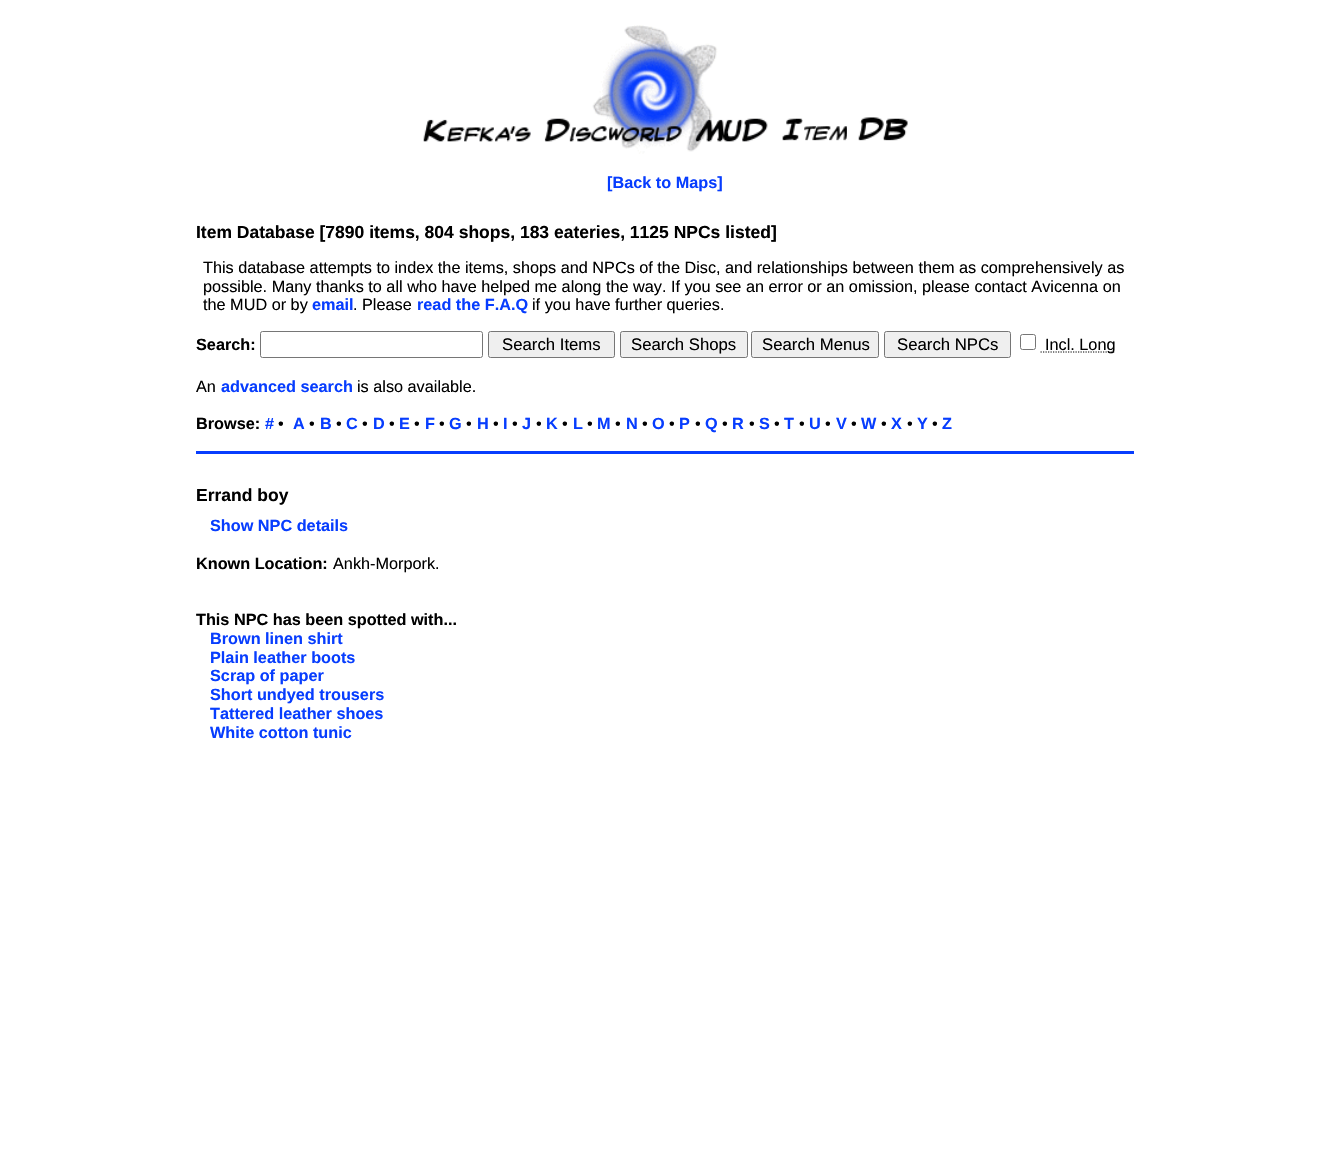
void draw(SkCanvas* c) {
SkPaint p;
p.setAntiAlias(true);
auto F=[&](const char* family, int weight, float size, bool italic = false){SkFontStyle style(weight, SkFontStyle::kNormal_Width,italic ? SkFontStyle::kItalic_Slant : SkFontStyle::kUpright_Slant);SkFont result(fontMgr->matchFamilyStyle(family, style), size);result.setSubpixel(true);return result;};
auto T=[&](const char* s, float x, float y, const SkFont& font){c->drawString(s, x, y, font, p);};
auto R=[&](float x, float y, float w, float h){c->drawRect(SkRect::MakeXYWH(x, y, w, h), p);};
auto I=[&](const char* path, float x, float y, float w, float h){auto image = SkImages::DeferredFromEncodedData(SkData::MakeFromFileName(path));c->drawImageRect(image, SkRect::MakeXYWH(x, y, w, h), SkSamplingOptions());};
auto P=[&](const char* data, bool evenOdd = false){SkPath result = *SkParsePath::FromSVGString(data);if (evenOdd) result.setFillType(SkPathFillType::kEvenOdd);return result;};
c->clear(0xffffffff);
I("1.png",423,25,485,129);
auto f1 = F("Liberation Sans",700,16.25);
p.setColor(0xff073dfe);
T("[Back to Maps]",607,188,f1);
R(196,451,938,3);
auto f2 = F("Liberation Sans",700,17.5);
p.setColor(0xff000000);
T("Item Database [7890 items, 804 shops, 183 eateries, 1125 NPCs listed]",196,238,f2);
auto f3 = F("Liberation Sans",400,16.25);
T("This database attempts to index the items, shops and NPCs of the Disc, and relationships between them as comprehensively as",203,273,f3);
T("possible. Many thanks to all who have helped me along the way. If you see an error or an omission, please contact Avicenna on",203,292,f3);
T("the MUD or by",203,310,f3);
p.setColor(0xff073dfe);
T("email",312,310,f1);
p.setColor(0xff000000);
T(". Please",353,310,f3);
p.setColor(0xff073dfe);
T("read the F.A.Q",417,310,f1);
p.setColor(0xff000000);
T("if you have further queries.",532,310,f3);
T("Search:",196,350,f1);
p.setStroke(true);
p.setStrokeWidth(1);
p.setColor(0xff767676);
c->drawRoundRect(SkRect::MakeXYWH(260.5,331.5,222,26),2,2,p);
p.setStroke(false);
p.setColor(0xffefefef);
c->drawRoundRect(SkRect::MakeXYWH(488.5,331.5,126,26),2,2,p);
p.setStroke(true);
p.setColor(0xff767676);
c->drawRoundRect(SkRect::MakeXYWH(488.5,331.5,126,26),2,2,p);
auto f4 = F("Liberation Sans",400,16.75);
p.setStroke(false);
p.setColor(0xff000000);
T("Search Items",502,350,f4);
p.setColor(0xffefefef);
c->drawRoundRect(SkRect::MakeXYWH(620.5,331.5,127,26),2,2,p);
p.setStroke(true);
p.setColor(0xff767676);
c->drawRoundRect(SkRect::MakeXYWH(620.5,331.5,127,26),2,2,p);
p.setStroke(false);
p.setColor(0xff000000);
T("Search Shops",631,350,f4);
p.setColor(0xffefefef);
c->drawRoundRect(SkRect::MakeXYWH(751.5,331.5,127,26),2,2,p);
p.setStroke(true);
p.setColor(0xff767676);
c->drawRoundRect(SkRect::MakeXYWH(751.5,331.5,127,26),2,2,p);
p.setStroke(false);
p.setColor(0xff000000);
T("Search Menus",762,350,f4);
p.setColor(0xffefefef);
c->drawRoundRect(SkRect::MakeXYWH(884.5,331.5,126,26),2,2,p);
p.setStroke(true);
p.setColor(0xff767676);
c->drawRoundRect(SkRect::MakeXYWH(884.5,331.5,126,26),2,2,p);
p.setStroke(false);
p.setColor(0xff000000);
T("Search NPCs",897,350,f4);
p.setStroke(true);
p.setColor(0xff767676);
c->drawRoundRect(SkRect::MakeXYWH(1020.5,334.5,15,15),2,2,p);
p.setStrokeWidth(1.2);
p.setColor(0xff000000);
p.setPathEffect(SkDashPathEffect::Make({{1.25f,1.25f}}, 0));
c->drawPath(P("M1040.5 352h75"),p);
p.setPathEffect(nullptr);
p.setStroke(false);
T("Incl. Long",1045,350,f3);
T("An",196,392,f3);
p.setColor(0xff073dfe);
T("advanced search",221,392,f1);
p.setColor(0xff000000);
T("is also available.",357,392,f3);
T("Browse:",196,429,f1);
p.setColor(0xff073dfe);
T("#",265,429,f1);
p.setColor(0xff000000);
T("•",278,429,f3);
p.setColor(0xff073dfe);
T("A",293,429,f1);
p.setColor(0xff000000);
T("•",309,429,f3);
p.setColor(0xff073dfe);
T("B",320,429,f1);
p.setColor(0xff000000);
T("•",336,429,f3);
p.setColor(0xff073dfe);
T("C",346,429,f1);
p.setColor(0xff000000);
T("•",362,429,f3);
p.setColor(0xff073dfe);
T("D",373,429,f1);
p.setColor(0xff000000);
T("•",389,429,f3);
p.setColor(0xff073dfe);
T("E",399,429,f1);
p.setColor(0xff000000);
T("•",414,429,f3);
p.setColor(0xff073dfe);
T("F",425,429,f1);
p.setColor(0xff000000);
T("•",439,429,f3);
p.setColor(0xff073dfe);
T("G",449,429,f1);
p.setColor(0xff000000);
T("•",466,429,f3);
p.setColor(0xff073dfe);
T("H",477,429,f1);
p.setColor(0xff000000);
T("•",493,429,f3);
p.setColor(0xff073dfe);
T("I",503,429,f1);
p.setColor(0xff000000);
T("•",512,429,f3);
p.setColor(0xff073dfe);
T("J",522,429,f1);
p.setColor(0xff000000);
T("•",536,429,f3);
p.setColor(0xff073dfe);
T("K",546,429,f1);
p.setColor(0xff000000);
T("•",562,429,f3);
p.setColor(0xff073dfe);
T("L",573,429,f1);
p.setColor(0xff000000);
T("•",587,429,f3);
p.setColor(0xff073dfe);
T("M",597,429,f1);
p.setColor(0xff000000);
T("•",615,429,f3);
p.setColor(0xff073dfe);
T("N",626,429,f1);
p.setColor(0xff000000);
T("•",642,429,f3);
p.setColor(0xff073dfe);
T("O",652,429,f1);
p.setColor(0xff000000);
T("•",669,429,f3);
p.setColor(0xff073dfe);
T("P",679,429,f1);
p.setColor(0xff000000);
T("•",695,429,f3);
p.setColor(0xff073dfe);
T("Q",705,429,f1);
p.setColor(0xff000000);
T("•",722,429,f3);
p.setColor(0xff073dfe);
T("R",732,429,f1);
p.setColor(0xff000000);
T("•",749,429,f3);
p.setColor(0xff073dfe);
T("S",759,429,f1);
p.setColor(0xff000000);
T("•",774,429,f3);
p.setColor(0xff073dfe);
T("T",784,429,f1);
p.setColor(0xff000000);
T("•",799,429,f3);
p.setColor(0xff073dfe);
T("U",809,429,f1);
p.setColor(0xff000000);
T("•",825,429,f3);
p.setColor(0xff073dfe);
T("V",836,429,f1);
p.setColor(0xff000000);
T("•",851,429,f3);
p.setColor(0xff073dfe);
T("W",861,429,f1);
p.setColor(0xff000000);
T("•",881,429,f3);
p.setColor(0xff073dfe);
T("X",891,429,f1);
p.setColor(0xff000000);
T("•",907,429,f3);
p.setColor(0xff073dfe);
T("Y",917,429,f1);
p.setColor(0xff000000);
T("•",932,429,f3);
p.setColor(0xff073dfe);
T("Z",942,429,f1);
p.setColor(0xff000000);
T("Errand boy",196,501,f2);
p.setColor(0xff073dfe);
T("Show NPC details",210,531,f1);
p.setColor(0xff000000);
T("Known Location:",196,569,f1);
T("Ankh-Morpork.",333,569,f3);
T("This NPC has been spotted with...",196,625,f1);
p.setColor(0xff073dfe);
T("Brown linen shirt",210,644,f1);
T("Plain leather boots",210,663,f1);
T("Scrap of paper",210,681,f1);
T("Short undyed trousers",210,700,f1);
T("Tattered leather shoes",210,719,f1);
T("White cotton tunic",210,738,f1);
}
